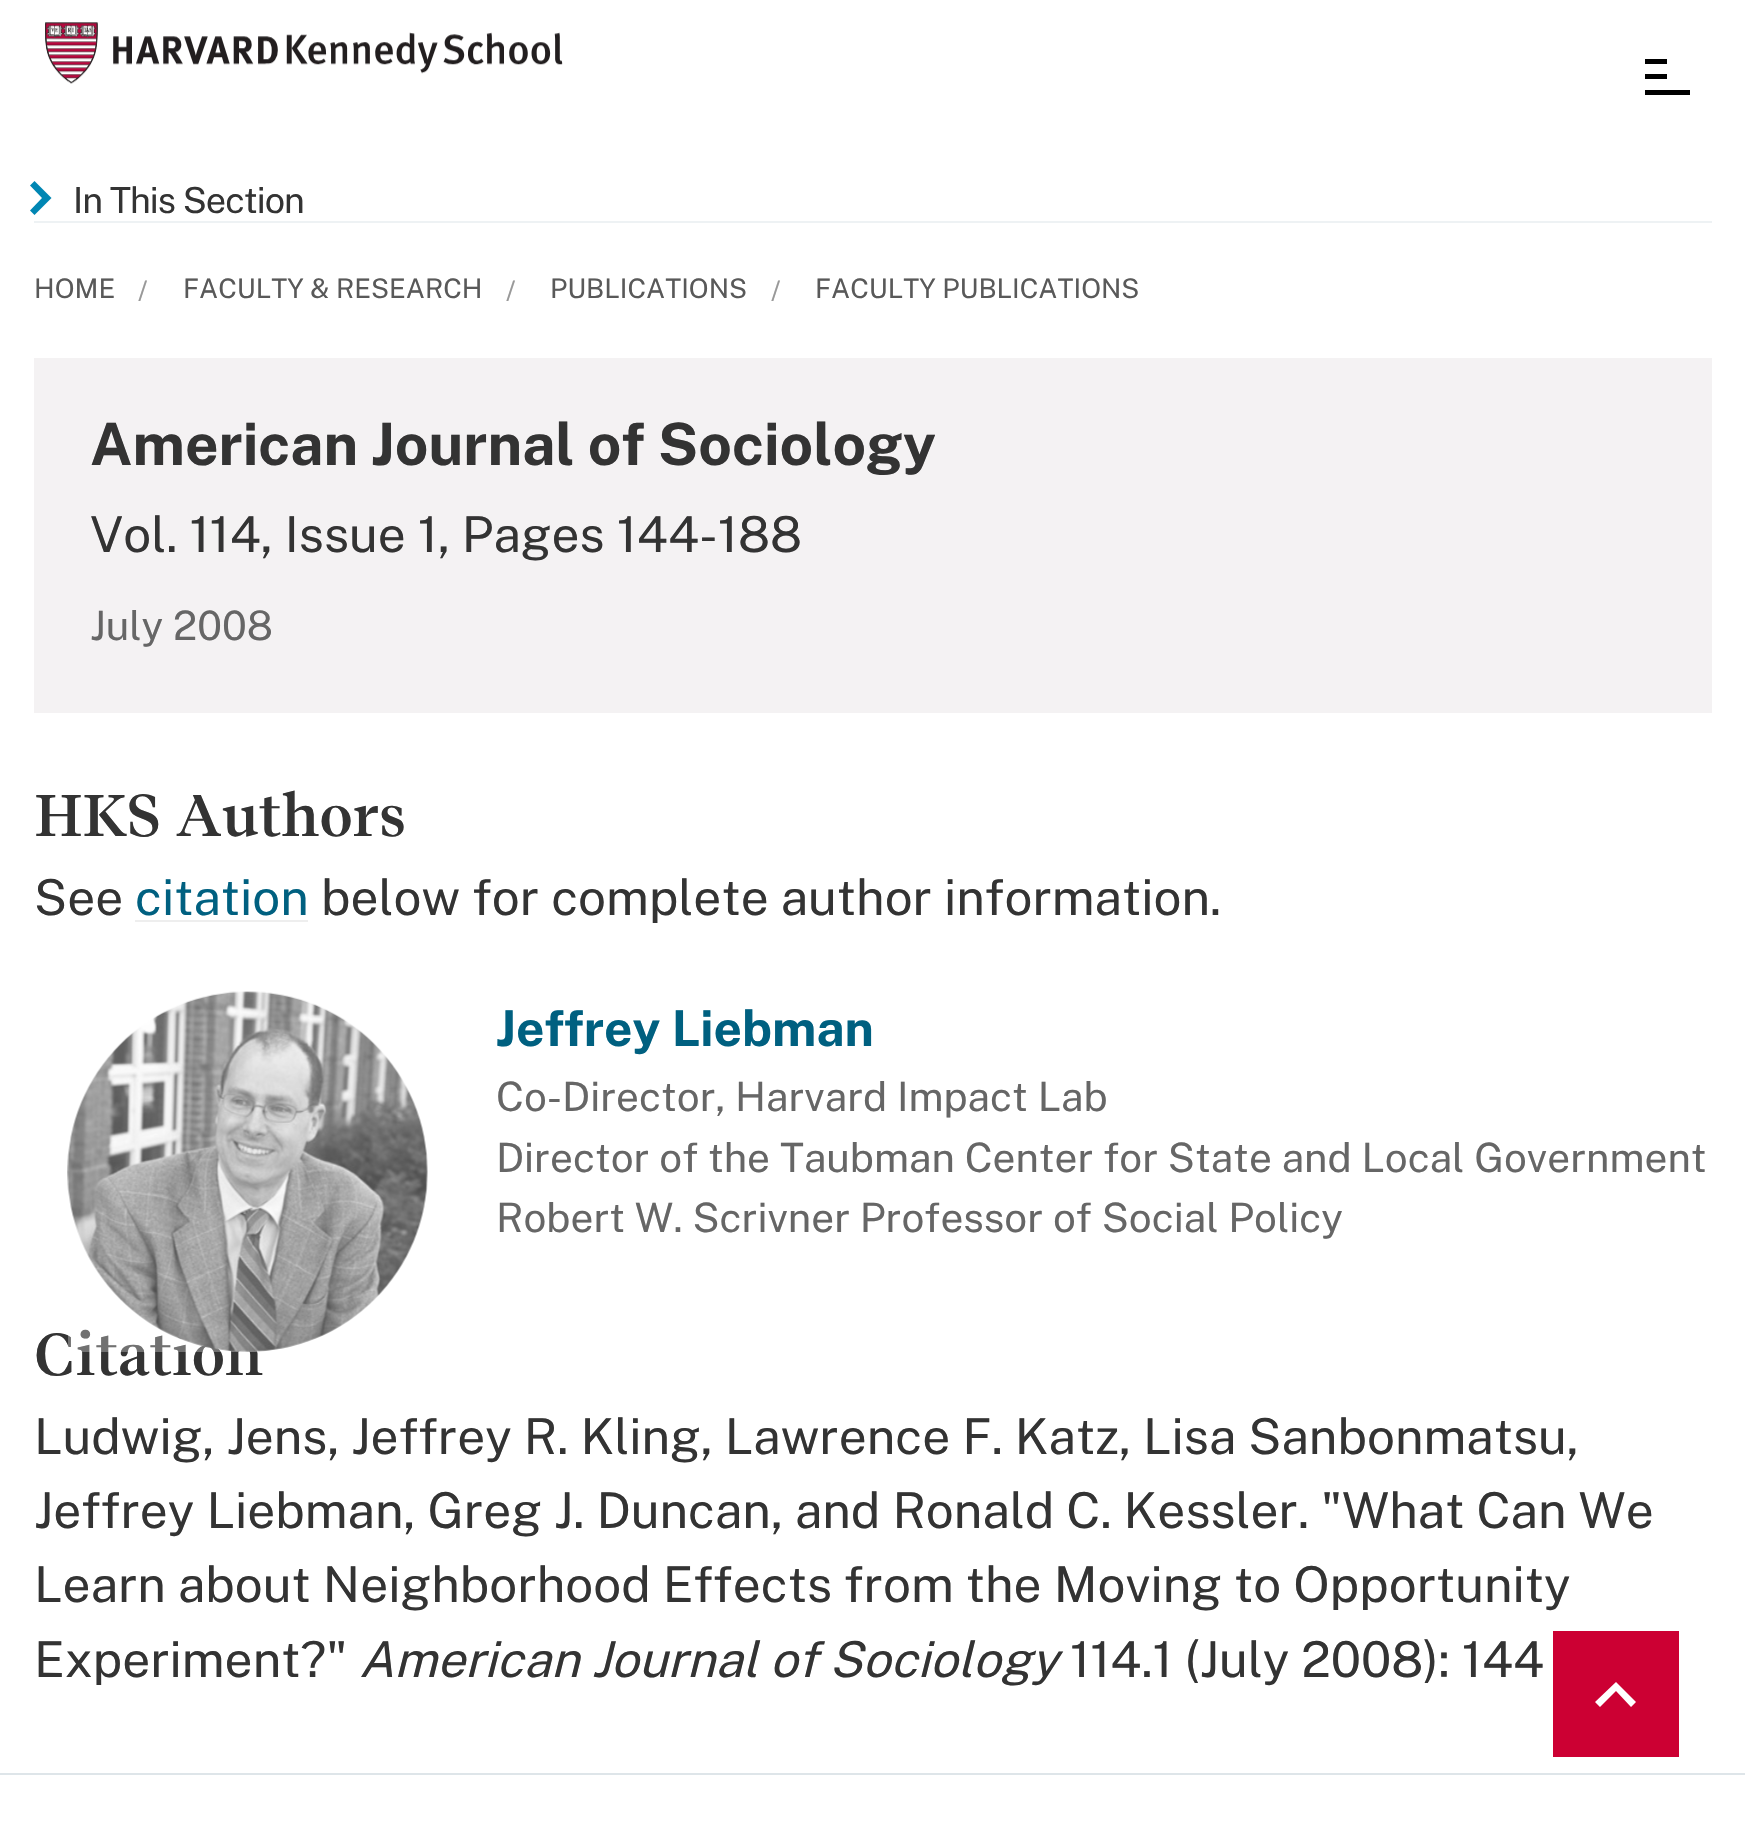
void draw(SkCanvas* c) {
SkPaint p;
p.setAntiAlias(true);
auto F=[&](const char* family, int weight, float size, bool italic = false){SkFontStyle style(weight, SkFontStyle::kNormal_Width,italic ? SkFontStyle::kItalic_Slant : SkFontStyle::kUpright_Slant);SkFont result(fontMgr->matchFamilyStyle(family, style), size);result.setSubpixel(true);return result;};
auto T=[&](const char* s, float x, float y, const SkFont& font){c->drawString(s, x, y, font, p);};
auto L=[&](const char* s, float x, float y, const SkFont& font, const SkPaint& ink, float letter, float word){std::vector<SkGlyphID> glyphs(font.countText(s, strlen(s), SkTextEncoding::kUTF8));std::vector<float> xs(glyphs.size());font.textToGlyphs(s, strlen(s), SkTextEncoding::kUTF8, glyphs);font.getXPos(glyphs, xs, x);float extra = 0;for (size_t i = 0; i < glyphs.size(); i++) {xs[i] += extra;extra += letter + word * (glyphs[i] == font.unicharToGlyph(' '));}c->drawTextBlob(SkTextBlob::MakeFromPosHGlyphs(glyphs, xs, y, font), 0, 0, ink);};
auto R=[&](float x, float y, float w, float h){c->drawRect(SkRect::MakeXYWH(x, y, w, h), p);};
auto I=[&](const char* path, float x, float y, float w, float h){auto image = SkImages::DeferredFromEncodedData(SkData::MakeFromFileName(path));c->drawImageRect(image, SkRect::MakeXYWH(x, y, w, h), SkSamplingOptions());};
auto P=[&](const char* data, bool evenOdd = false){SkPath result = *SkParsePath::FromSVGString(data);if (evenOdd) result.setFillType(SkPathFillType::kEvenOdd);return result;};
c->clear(0xffffffff);
I("1.png",45,22,518,62);
p.setColor(0xff000000);
R(1645,59,22,5);
R(1645,74,22,5);
R(1645,90,45,5);
p.setColor(0xffeef2f4);
R(34,221,1678,2);
p.setColor(0xff0086b3);
c->drawPath(P("M51.5 198l-17-17l-4.5 4.5l12 12.5l-12 12.5l4.5 4.5z"),p);
auto f1 = F("Public Sans",100,36);
p.setColor(0xff333333);
L("In This Section",73,213,f1,p,-1,0);
auto f2 = F("Public Sans",100,27);
p.setColor(0xff595959);
T("HOME",34,298,f2);
p.setColor(0xff999999);
T("/",138,300,f2);
p.setColor(0xff595959);
T("FACULTY & RESEARCH",183,298,f2);
p.setColor(0xff999999);
T("/",506,300,f2);
p.setColor(0xff595959);
T("PUBLICATIONS",550,298,f2);
p.setColor(0xff999999);
T("/",771,300,f2);
p.setColor(0xff595959);
T("FACULTY PUBLICATIONS",815,298,f2);
p.setColor(0xfff4f2f3);
R(34,358,1678,355);
auto f3 = F("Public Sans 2",100,58.5);
p.setColor(0xff333333);
T("American Journal of Sociology",90,465,f3);
auto f4 = F("Public Sans",100,49.5);
T("Vol. 114, Issue 1, Pages 144-188",90,552,f4);
auto f5 = F("Public Sans",100,40.5);
p.setColor(0xff666666);
T("July 2008",90,640,f5);
auto f6 = F("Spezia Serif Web",600,58.5);
p.setColor(0xff333333);
L("HKS Authors",34,836,f6,p,-.75,0);
T("See",34,915,f4);
p.setColor(0xff006080);
T("citation",135,915,f4);
p.setColor(0xffeeeeee);
R(135,920,173,2);
p.setColor(0xff333333);
T("below for complete author information.",321,915,f4);
L("Citation",34,1375,f6,p,-.75,0);
I("2.png",67,991,361,361);
p.setColor(0x4dffffff);
R(68,992,360,360);
auto f7 = F("Public Sans 2",100,49.5);
p.setColor(0xff006080);
T("Jeffrey Liebman",496,1046,f7);
p.setColor(0xff666666);
T("Co-Director, Harvard Impact Lab",496,1111,f5);
T("Director of the Taubman Center for State and Local Government",496,1172,f5);
T("Robert W. Scrivner Professor of Social Policy",496,1232,f5);
p.setColor(0xff333333);
T("Ludwig, Jens, Jeffrey R. Kling, Lawrence F. Katz, Lisa Sanbonmatsu,",34,1454,f4);
T("Jeffrey Liebman, Greg J. Duncan, and Ronald C. Kessler. \"What Can We",34,1528,f4);
T("Learn about Neighborhood Effects from the Moving to Opportunity",34,1602,f4);
T("Experiment?\"",34,1677,f4);
auto f8 = F("Public Sans",100,49.5,true);
T("American Journal of Sociology",359,1677,f8);
T("114.1 (July 2008): 144",1070,1677,f4);
p.setColor(0xffcc0033);
R(1553,1631,126,126);
p.setColor(0xffffffff);
c->drawPath(P("M1616 1691l-16 16l-5-5l21-20l20 20l-5 5z"),p);
p.setColor(0xffdee5e9);
R(0,1773,1745,2);
}
